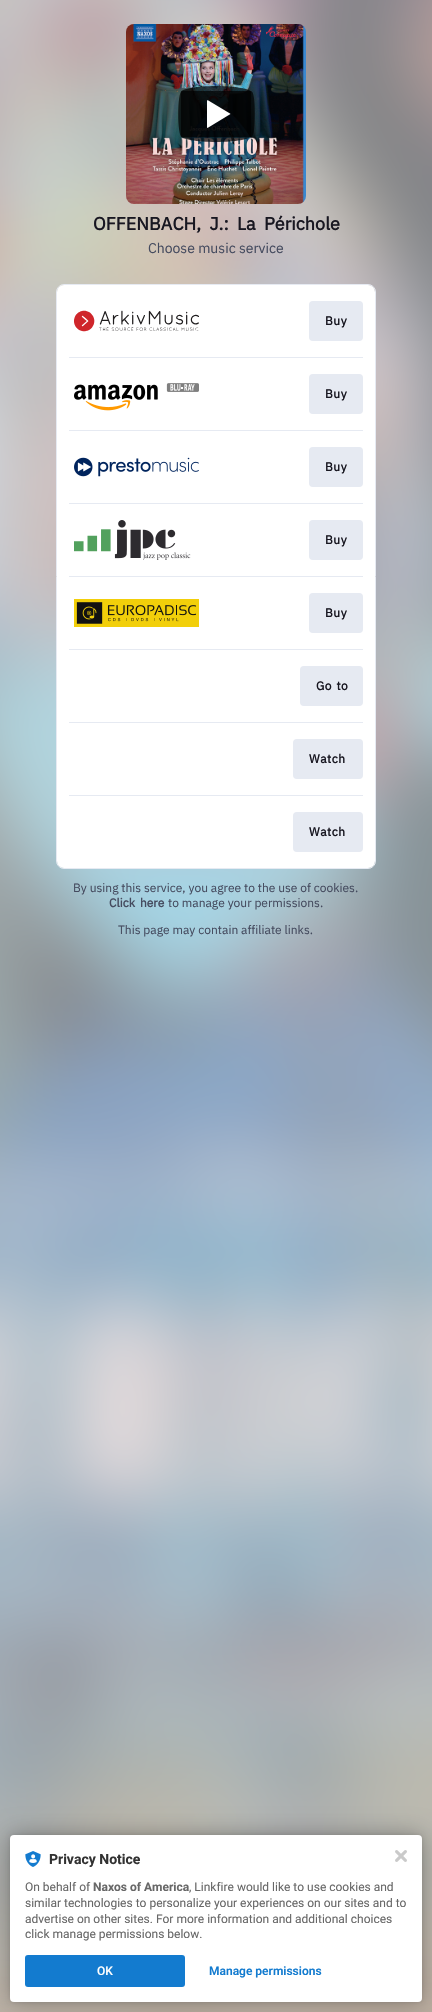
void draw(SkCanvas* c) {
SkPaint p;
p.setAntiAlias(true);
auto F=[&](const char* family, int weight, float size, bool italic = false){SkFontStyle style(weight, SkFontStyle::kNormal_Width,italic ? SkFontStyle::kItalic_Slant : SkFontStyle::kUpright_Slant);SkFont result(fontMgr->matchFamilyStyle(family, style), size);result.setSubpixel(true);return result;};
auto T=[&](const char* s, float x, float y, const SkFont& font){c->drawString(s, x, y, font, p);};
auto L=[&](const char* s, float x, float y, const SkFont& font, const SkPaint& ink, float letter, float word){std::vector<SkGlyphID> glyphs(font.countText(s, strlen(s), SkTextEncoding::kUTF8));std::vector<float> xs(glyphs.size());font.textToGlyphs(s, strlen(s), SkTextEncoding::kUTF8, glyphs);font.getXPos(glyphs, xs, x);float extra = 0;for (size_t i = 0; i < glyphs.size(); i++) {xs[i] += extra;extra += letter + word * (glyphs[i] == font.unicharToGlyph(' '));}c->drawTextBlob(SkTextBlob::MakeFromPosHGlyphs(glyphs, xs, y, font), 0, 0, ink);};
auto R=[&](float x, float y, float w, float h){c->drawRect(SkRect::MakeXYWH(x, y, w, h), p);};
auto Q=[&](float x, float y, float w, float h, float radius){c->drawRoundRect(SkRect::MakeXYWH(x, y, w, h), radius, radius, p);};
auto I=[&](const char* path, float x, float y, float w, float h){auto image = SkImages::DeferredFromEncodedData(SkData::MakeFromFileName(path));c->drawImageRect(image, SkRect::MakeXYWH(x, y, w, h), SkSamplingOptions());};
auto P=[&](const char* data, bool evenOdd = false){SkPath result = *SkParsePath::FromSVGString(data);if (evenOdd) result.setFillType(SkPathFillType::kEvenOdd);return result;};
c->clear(0xffffffff);
I("1.png",0,0,432,2012);
I("2.png",126,24,180,180);
p.setColor(0xb3000000);
c->drawPath(P("M216 86c19 0 35 3 35 6v44c0 3-16 6-35 6c-19 0-35-3-35-6v-44c0-3 16-6 35-6z"),p);
c->drawPath(P("M182 91h69c5 0 4 34 3 39c0 1-1 7-3 7h-69c-5 0-5-46 0-46z"),p);
p.setColor(0xffffffff);
c->drawPath(P("M230 113.5l-22.5-13.5l-.5 .5v27l.5 .5l23-14z"),p);
auto f1 = F("IBM Plex Sans",700,18);
p.setColor(0xff181721);
L("OFFENBACH, J.: La Périchole",93,230,f1,p,0,4);
auto f2 = F("IBM Plex Sans",400,14);
p.setColor(0xff454b5f);
T("Choose music service",148,253,f2);
p.setStroke(true);
p.setStrokeWidth(1);
p.setColor(0xffe6eaf2);
c->drawRoundRect(SkRect::MakeXYWH(56.5,284.5,319,584),7.5,7.5,p);
p.setStroke(false);
p.setColor(0xffffffff);
Q(57,285,318,583,7);
I("3.png",74,310,125,22);
p.setColor(0xffe6eaf2);
Q(309,301,54,40,4);
auto f3 = F("IBM Plex Sans",700,12);
p.setColor(0xff181721);
L("Buy",325,325,f3,p,.5,0);
p.setColor(0xffe6eaf2);
R(69,357,294,1);
I("4.png",74,383,125,28);
Q(309,374,54,40,4);
p.setColor(0xff181721);
L("Buy",325,398,f3,p,.5,0);
p.setColor(0xffe6eaf2);
R(69,430,294,1);
I("5.png",74,457,125,20);
Q(309,447,54,40,4);
p.setColor(0xff181721);
L("Buy",325,471,f3,p,.5,0);
p.setColor(0xffe6eaf2);
R(69,503,294,1);
I("6.png",74,520,117,40);
Q(309,520,54,40,4);
p.setColor(0xff181721);
L("Buy",325,544,f3,p,.5,0);
p.setColor(0xffe6eaf2);
R(69,576,294,1);
I("7.png",74,599,125,28);
Q(309,593,54,40,4);
p.setColor(0xff181721);
L("Buy",325,617,f3,p,.5,0);
p.setColor(0xffe6eaf2);
R(69,649,294,1);
Q(300,666,63,40,4);
p.setColor(0xff181721);
L("Go to",316,690,f3,p,.5,1);
p.setColor(0xffe6eaf2);
R(69,722,294,1);
Q(293,739,70,40,4);
p.setColor(0xff181721);
L("Watch",309,763,f3,p,.5,0);
p.setColor(0xffe6eaf2);
R(69,795,294,1);
Q(293,812,70,40,4);
p.setColor(0xff181721);
L("Watch",309,836,f3,p,.5,0);
auto f4 = F("IBM Plex Sans",400,12);
p.setColor(0xff454b5f);
T("By using this service, you agree to the use of cookies.",73,892,f4);
L("Click here",109,907,f3,p,0,2);
T("to manage your permissions.",168,907,f4);
T("This page may contain affiliate links.",118,934,f4);
p.setColor(0x1f000000);
p.setMaskFilter(SkMaskFilter::MakeBlur(kNormal_SkBlurStyle, 2));
c->drawRoundRect(SkRect::MakeXYWH(10,1835,412,167),4,4,p);
p.setMaskFilter(nullptr);
p.setColor(0x4d000000);
p.setMaskFilter(SkMaskFilter::MakeBlur(kNormal_SkBlurStyle, 12));
c->drawRoundRect(SkRect::MakeXYWH(10,1835,412,167),4,4,p);
p.setMaskFilter(nullptr);
p.setColor(0xffffffff);
Q(10,1835,412,167,4);
I("8.png",395,1850,12,12);
I("9.png",25,1851,16,16);
auto f5 = F("Roboto",700,14);
p.setColor(0xff323232);
T("Privacy Notice",49,1864,f5);
auto f6 = F("Roboto",400,12);
p.setColor(0xff686868);
T("On behalf of",25,1891,f6);
auto f7 = F("Roboto",700,12);
T("Naxos of America",93,1891,f7);
T(", Linkfire would like to use cookies and",189,1891,f6);
T("similar technologies to personalize your experiences on our sites and to",25,1907,f6);
T("advertise on other sites. For more information and additional choices",25,1923,f6);
T("click manage permissions below.",25,1938,f6);
p.setColor(0xff137bcf);
Q(25,1955,160,32,3);
auto f8 = F("Roboto",500,12);
p.setColor(0xffffffff);
T("OK",97,1975,f8);
auto f9 = F("Roboto",600,12);
p.setColor(0xff137bcf);
T("Manage permissions",209,1975,f9);
}
